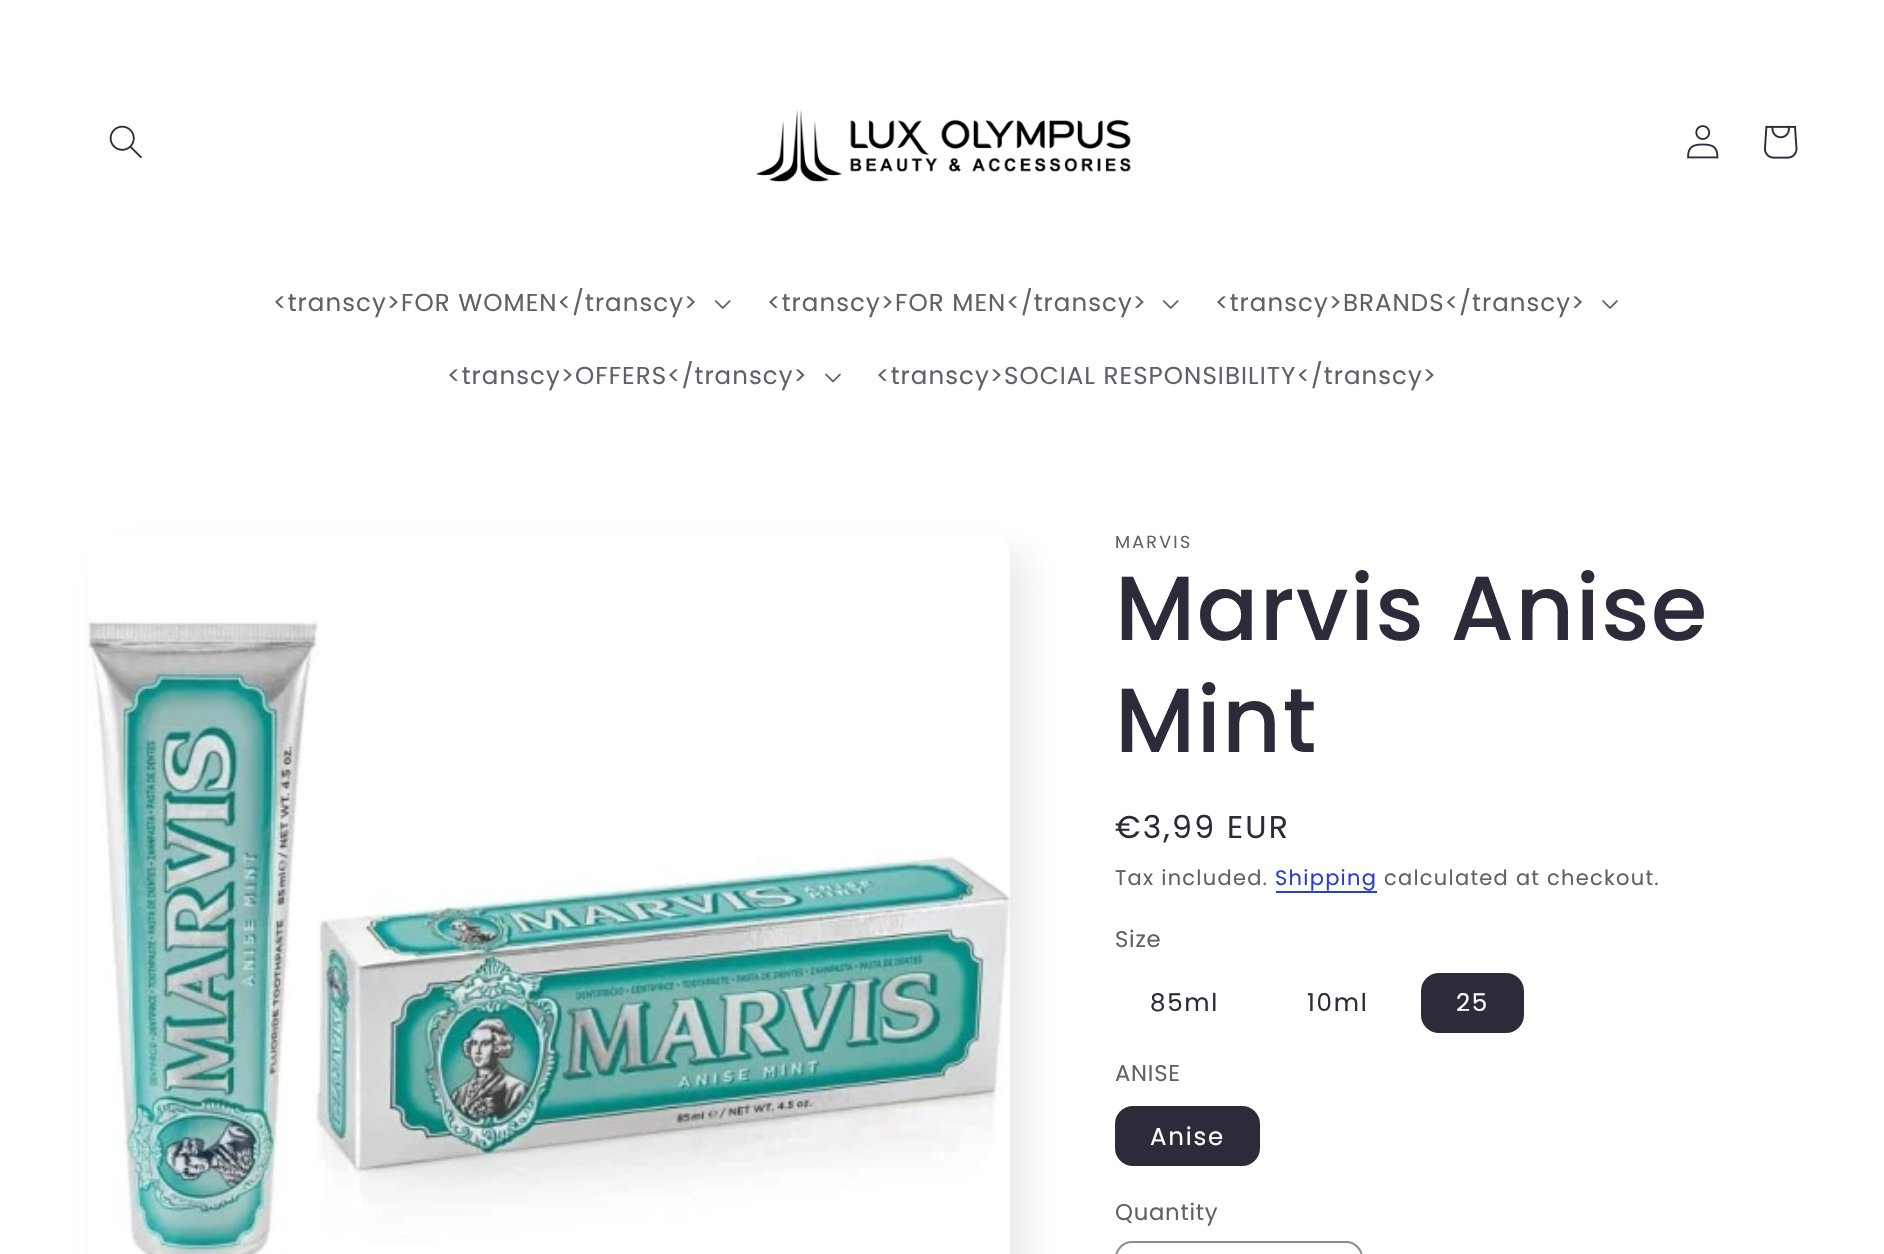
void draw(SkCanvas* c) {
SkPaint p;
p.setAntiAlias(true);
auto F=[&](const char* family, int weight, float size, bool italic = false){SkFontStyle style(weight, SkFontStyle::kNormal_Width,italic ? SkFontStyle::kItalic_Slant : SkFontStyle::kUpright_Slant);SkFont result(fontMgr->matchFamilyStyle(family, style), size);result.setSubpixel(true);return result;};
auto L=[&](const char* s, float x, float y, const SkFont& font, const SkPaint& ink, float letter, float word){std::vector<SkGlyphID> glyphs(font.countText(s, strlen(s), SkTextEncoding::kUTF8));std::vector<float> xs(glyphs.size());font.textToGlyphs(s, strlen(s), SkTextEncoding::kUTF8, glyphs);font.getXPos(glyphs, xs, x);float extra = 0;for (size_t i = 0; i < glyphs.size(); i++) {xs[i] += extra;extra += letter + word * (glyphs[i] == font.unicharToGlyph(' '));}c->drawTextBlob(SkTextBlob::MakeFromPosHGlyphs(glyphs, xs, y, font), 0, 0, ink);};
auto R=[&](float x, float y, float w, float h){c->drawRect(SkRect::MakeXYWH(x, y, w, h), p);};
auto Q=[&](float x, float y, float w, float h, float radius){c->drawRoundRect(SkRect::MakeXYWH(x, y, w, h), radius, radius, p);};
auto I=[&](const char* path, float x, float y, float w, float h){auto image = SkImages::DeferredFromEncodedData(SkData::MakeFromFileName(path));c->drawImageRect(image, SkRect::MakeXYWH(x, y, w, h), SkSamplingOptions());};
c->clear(0xffffffff);
I("1.png",109,125,33,34);
I("2.png",756,110,375,72);
I("3.png",1687,125,32,34);
I("4.png",1764,125,34,34);
auto f1 = F("Poppins",400,24.5);
p.setColor(0xff625f6b);
L("<transcy>FOR WOMEN</transcy>",273,311,f1,p,1.05,0);
I("5.png",715,300,16,9);
L("<transcy>FOR MEN</transcy>",767,311,f1,p,1.05,0);
I("5.png",1163,300,16,9);
L("<transcy>BRANDS</transcy>",1215,311,f1,p,1.05,0);
I("6.png",1602,300,16,9);
L("<transcy>OFFERS</transcy>",447,384,f1,p,1.05,0);
I("7.png",825,373,16,10);
L("<transcy>SOCIAL RESPONSIBILITY</transcy>",876,384,f1,p,1.05,0);
p.setColor(0x1a2e2a39);
p.setMaskFilter(SkMaskFilter::MakeBlur(kNormal_SkBlurStyle, 17.5));
c->drawRoundRect(SkRect::MakeXYWH(105,553,922,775),21,21,p);
p.setMaskFilter(nullptr);
p.setColor(0xffffffff);
Q(88,532,922,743,21);
I("8.png",88,619,922,635);
auto f2 = F("Poppins",400,17.5);
p.setColor(0xff625f6b);
L("MARVIS",1115,548,f2,p,2.25,0);
auto f3 = F("Poppins",500,91);
p.setColor(0xff2e2a39);
L("Marvis Anise",1115,640,f3,p,1.4,0);
L("Mint",1115,752,f3,p,1.4,0);
auto f4 = F("Poppins",400,31.5);
L("€3,99 EUR",1115,838,f4,p,2.25,0);
auto f5 = F("Poppins",400,21);
p.setColor(0xff625f6b);
L("Tax included.",1115,885,f5,p,1.25,0);
p.setColor(0xff2640cf);
L("Shipping",1275,885,f5,p,1.25,0);
R(1276,891,101,2);
p.setColor(0xff625f6b);
L("calculated at checkout.",1384,885,f5,p,1.25,0);
auto f6 = F("Poppins",400,22.75);
L("Size",1115,947,f6,p,.75,0);
p.setColor(0xff2e2a39);
L("85ml",1150,1011,f1,p,1.75,0);
L("10ml",1307,1011,f1,p,1.75,0);
Q(1421,973,103,60,18);
p.setColor(0xffffffff);
L("25",1456,1011,f1,p,1.75,0);
p.setColor(0xff625f6b);
L("ANISE",1115,1081,f6,p,.75,0);
p.setColor(0xff2e2a39);
Q(1115,1106,145,60,18);
p.setColor(0xffffffff);
L("Anise",1150,1145,f1,p,1.75,0);
p.setColor(0xff625f6b);
L("Quantity",1115,1220,f6,p,.75,0);
p.setStroke(true);
p.setStrokeWidth(2);
p.setColor(0xff8c8a92);
c->drawRoundRect(SkRect::MakeXYWH(1116,1242,246,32),18,18,p);
}
